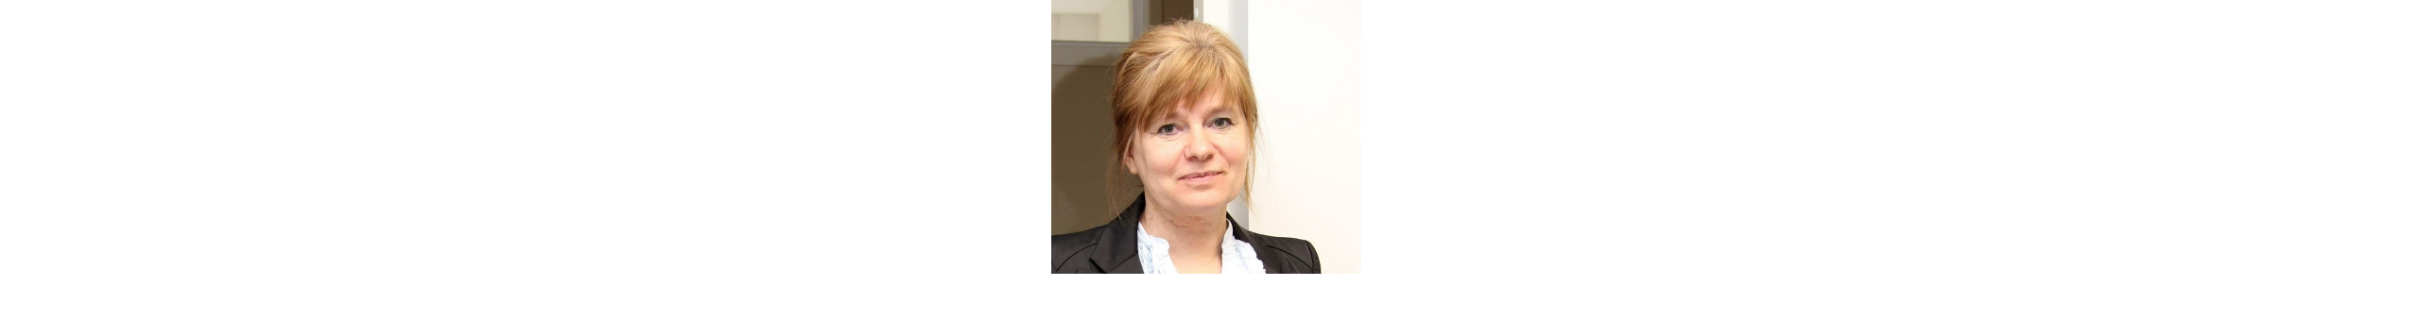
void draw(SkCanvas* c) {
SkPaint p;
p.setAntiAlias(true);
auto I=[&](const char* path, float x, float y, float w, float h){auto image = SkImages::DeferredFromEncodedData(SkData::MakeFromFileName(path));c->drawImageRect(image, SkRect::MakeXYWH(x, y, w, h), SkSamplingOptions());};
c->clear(0xffffffff);
I("1.png",1051,0,311,274);
}
